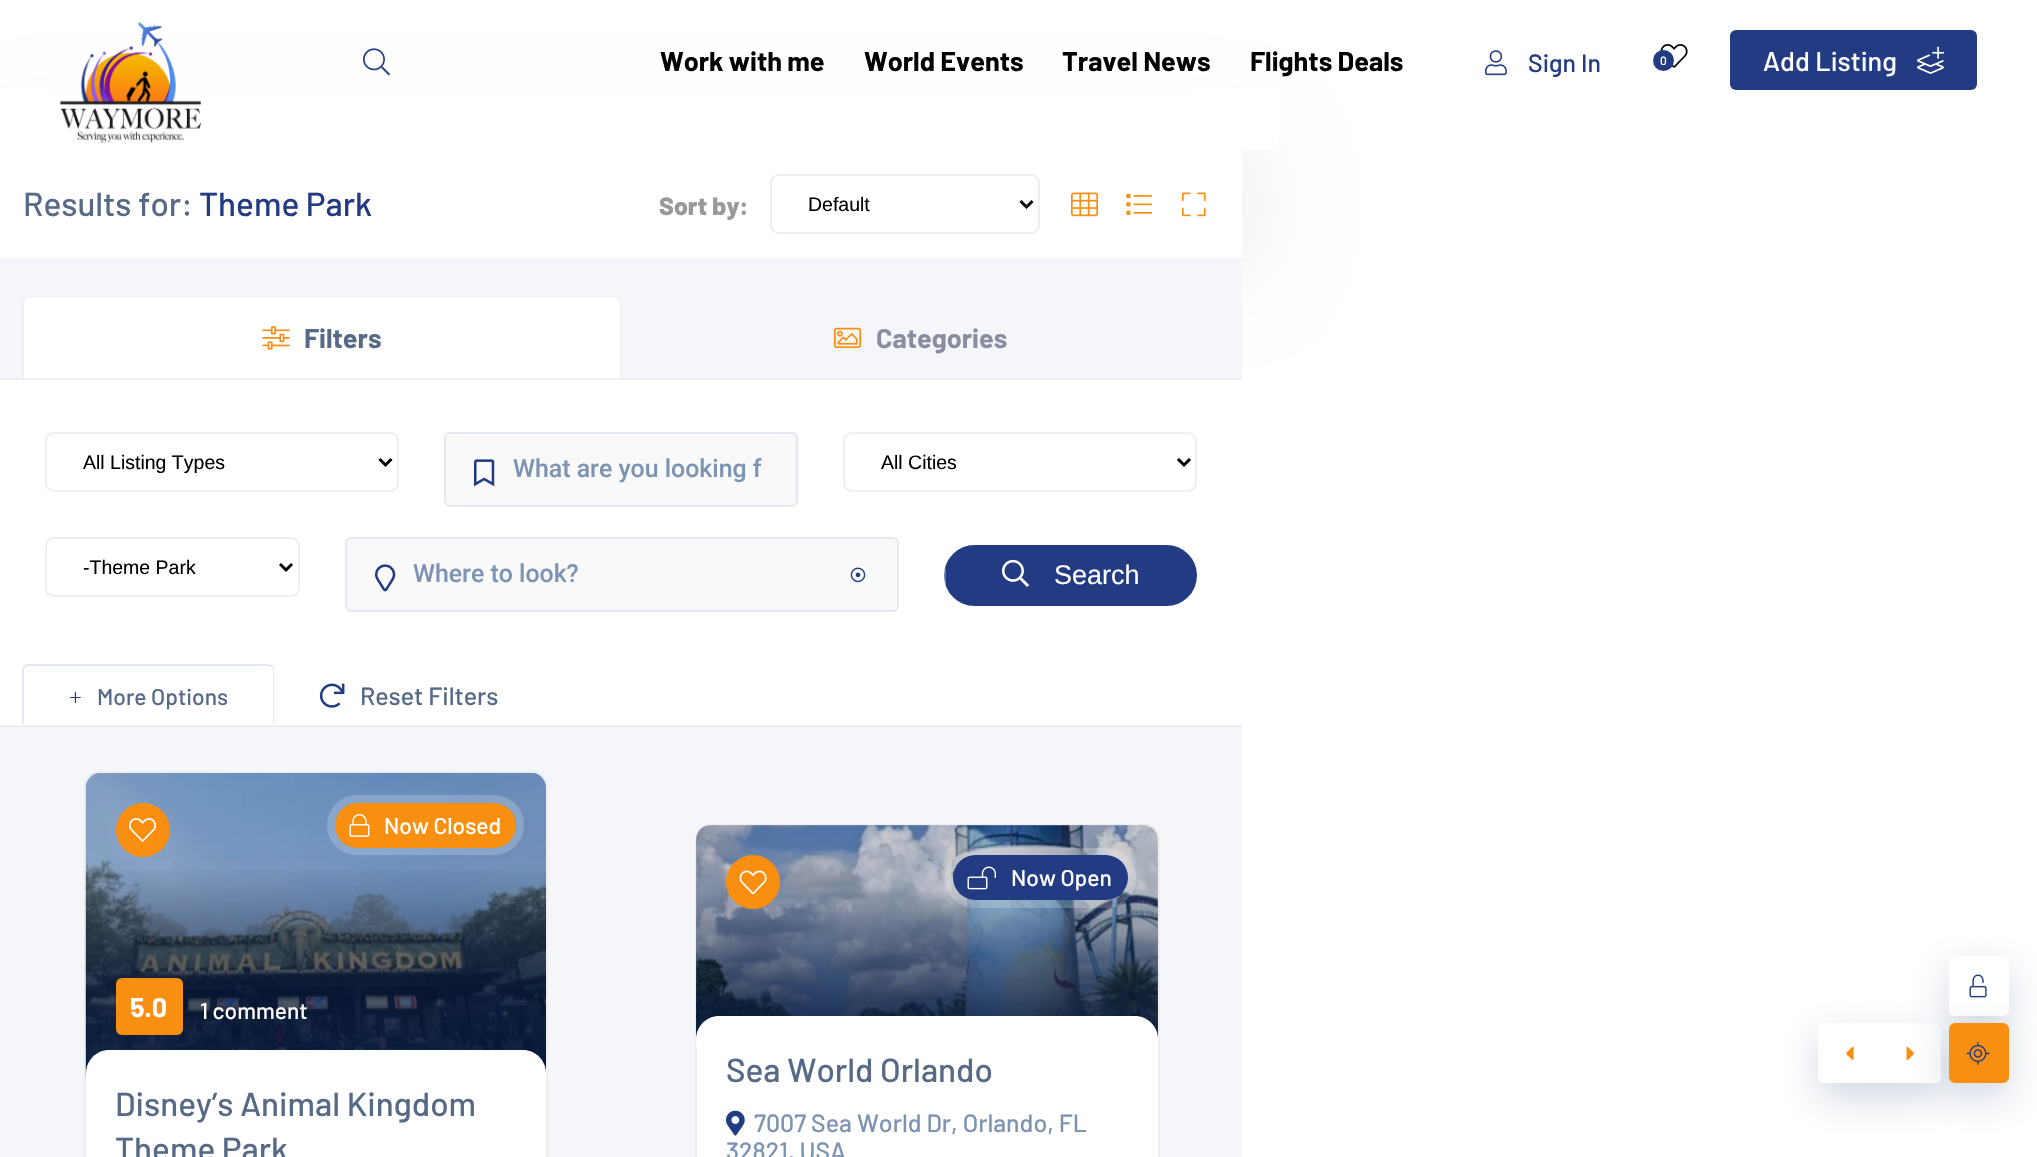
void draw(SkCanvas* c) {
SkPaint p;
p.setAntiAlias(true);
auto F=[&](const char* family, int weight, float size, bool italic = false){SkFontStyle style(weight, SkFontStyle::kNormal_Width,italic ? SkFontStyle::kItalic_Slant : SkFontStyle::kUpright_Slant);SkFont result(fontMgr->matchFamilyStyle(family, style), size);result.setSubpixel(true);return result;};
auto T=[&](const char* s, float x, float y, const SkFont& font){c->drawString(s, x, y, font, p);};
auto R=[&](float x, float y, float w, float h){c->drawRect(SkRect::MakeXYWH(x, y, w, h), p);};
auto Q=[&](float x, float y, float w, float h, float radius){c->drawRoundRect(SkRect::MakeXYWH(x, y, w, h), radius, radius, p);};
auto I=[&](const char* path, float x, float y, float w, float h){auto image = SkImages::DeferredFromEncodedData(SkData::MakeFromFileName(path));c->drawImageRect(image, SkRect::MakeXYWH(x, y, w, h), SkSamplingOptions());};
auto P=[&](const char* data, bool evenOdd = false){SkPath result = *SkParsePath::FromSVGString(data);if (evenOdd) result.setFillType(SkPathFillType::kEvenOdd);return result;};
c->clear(0xffffffff);
p.setColor(0x17000000);
p.setMaskFilter(SkMaskFilter::MakeBlur(kNormal_SkBlurStyle, 49));
c->drawRect(SkRect::MakeXYWH(0,150,1242,108),p);
p.setMaskFilter(nullptr);
p.setColor(0xffffffff);
R(0,90,1278,60);
I("1.png",60,22,141,121);
I("2.png",363,48,27,28);
auto f1 = F("Barlow",700,27);
p.setColor(0xff000000);
T("Work with me",660,71,f1);
T("World Events",864,71,f1);
T("Travel News",1062,71,f1);
T("Flights Deals",1250,71,f1);
I("3.png",1485,50,22,26);
auto f2 = F("Barlow",500,24.9);
p.setColor(0xff233b82);
T("Sign In",1528,72,f2);
I("4.png",1660,44,28,24);
c->drawCircle(1663.5,60.5,10.5,p);
auto f3 = F("Barlow",500,12);
p.setColor(0xffffffff);
T("0",1660,65,f3);
p.setColor(0xff233b82);
Q(1730,30,247,60,6);
auto f4 = F("Barlow",500,27);
p.setColor(0xffffffff);
T("Add Listing",1763,71,f4);
I("5.png",1917,46,27,28);
p.setColor(0xfff5f6fa);
R(0,727,1242,430);
p.setColor(0xffffffff);
R(0,150,1242,108);
auto f5 = F("Barlow",500,33.25);
p.setColor(0xff566985);
T("Results for:",23,216,f5);
p.setColor(0xff233b82);
T("Theme Park",199,216,f5);
auto f6 = F("Barlow",800,24.9);
p.setColor(0xff999999);
T("Sort by:",659,215,f6);
p.setStroke(true);
p.setStrokeWidth(2);
p.setColor(0xffeeeeee);
c->drawRoundRect(SkRect::MakeXYWH(771,175,268,58),8,8,p);
p.setStrokeWidth(3);
p.setColor(0xff000000);
c->drawPath(P("M1020.5 201l6 6l6-6"),p);
auto f7 = F("Liberation Sans",400,19.5);
p.setStroke(false);
T("Default",808,211,f7);
I("6.png",1071,192,27,25);
I("7.png",1126,193,26,22);
I("8.png",1182,192,24,25);
p.setColor(0xffeeeeee);
R(0,725,1242,2);
p.setColor(0xfff5f6fa);
R(0,258,1242,120);
p.setColor(0xffeeeeee);
R(0,378,1242,2);
p.setColor(0xffffffff);
c->drawPath(P("M32 296h580c5 0 9 4 9 9v73h-598v-73c0-5 4-9 9-9z"),p);
p.setColor(0xffeeeeee);
c->drawPath(P("M32 296h580c5 0 9 4 9 8v74h-599v-74c0-4 5-8 10-8zm0 1h580c4 0 8 3 8 7v74h-596v-74c0-4 3-7 8-7z",true),p);
I("9.png",262,326,28,24);
p.setColor(0xff566985);
T("Filters",304,348,f1);
I("10.png",834,327,27,21);
p.setColor(0xff888da0);
T("Categories",876,348,f1);
p.setStroke(true);
p.setStrokeWidth(2);
p.setColor(0xffeeeeee);
c->drawRoundRect(SkRect::MakeXYWH(46,433,352,58),8,8,p);
p.setStrokeWidth(3);
p.setColor(0xff000000);
c->drawPath(P("M379.5 459l6 6l6-6"),p);
p.setStroke(false);
T("All Listing Types",83,469,f7);
p.setColor(0xfff9f9f9);
c->drawRoundRect(SkRect::MakeXYWH(445,433,352,73),5,5,p);
p.setStroke(true);
p.setStrokeWidth(2);
p.setColor(0xffe5e7f2);
c->drawRoundRect(SkRect::MakeXYWH(445,433,352,73),5,5,p);
I("11.png",474,459,21,28);
auto f8 = F("Roboto",500,24.9);
p.setStroke(false);
p.setColor(0xff7d93b2);
T("What are you looking f",513,477,f8);
p.setStroke(true);
p.setColor(0xffeeeeee);
c->drawRoundRect(SkRect::MakeXYWH(844,433,352,58),8,8,p);
p.setStrokeWidth(3);
p.setColor(0xff000000);
c->drawPath(P("M1178 459l6 6l6-6"),p);
p.setStroke(false);
T("All Cities",881,469,f7);
p.setStroke(true);
p.setStrokeWidth(2);
p.setColor(0xffeeeeee);
c->drawRoundRect(SkRect::MakeXYWH(46,538,253,58),8,8,p);
p.setStrokeWidth(3);
p.setColor(0xff000000);
c->drawPath(P("M280 564l6 6l6-6"),p);
p.setStroke(false);
T("-Theme Park",83,574,f7);
p.setColor(0xfff9f9f9);
c->drawRoundRect(SkRect::MakeXYWH(346,538,552,73),5,5,p);
p.setStroke(true);
p.setStrokeWidth(2);
p.setColor(0xffe5e7f2);
c->drawRoundRect(SkRect::MakeXYWH(346,538,552,73),5,5,p);
I("12.png",375,564,21,28);
p.setStroke(false);
p.setColor(0xff7d93b2);
T("Where to look?",413,582,f8);
I("13.png",850,567,16,16);
p.setColor(0xff233b82);
Q(944,545,253,61,30.5);
I("14.png",1002,559,27,28);
p.setColor(0x4dffffff);
R(944,569,2,15);
auto f9 = F("Liberation Sans",400,27);
p.setColor(0xffffffff);
T("Search",1054,584,f9);
p.setColor(0xffe5e7f2);
c->drawPath(P("M28 664h240c4 0 6 3 6 6v54h-252v-54c0-3 3-6 6-6zm0 2h240c3 0 5 2 5 4v54h-249v-54c0-2 2-4 4-4z",true),p);
auto f10 = F("Liberation Serif",400,22.75);
p.setColor(0xff233b82);
T("+",69,705,f10);
auto f11 = F("Barlow",500,22.75);
p.setColor(0xff566985);
T("More Options",97,705,f11);
I("15.png",319,683,26,25);
T("Reset Filters",360,705,f2);
p.setColor(0xffffffff);
c->drawRoundRect(SkRect::MakeXYWH(85,772,462,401),14,14,p);
p.setStroke(true);
p.setColor(0xffeeeeee);
c->drawRoundRect(SkRect::MakeXYWH(85,772,462,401),14,14,p);
I("16.png",85,773,461,304);
p.setStroke(false);
p.setColor(0x33000000);
c->drawPath(P("M101 773h430c8.5 0 15 6.5 15 15v289h-460v-289c0-8.5 6.5-15 15-15z"),p);
{
const SkColor colors[] = {0x00061b41,0xf2061b41};
const float stops[] = {0,1};
const SkPoint ends[] = {{316,864}, {316,1077}};
p.setShader(SkGradientShader::MakeLinear(ends, colors, stops, 2, SkTileMode::kClamp));
p.setAlpha(255);
}
R(86,869,460,204);
p.setShader(nullptr);
p.setColor(0xfff98f10);
c->drawCircle(143,830,27,p);
I("17.png",129,818,28,24);
p.setStroke(true);
p.setStrokeWidth(8);
p.setColor(0x33ffffff);
c->drawRoundRect(SkRect::MakeXYWH(331,799,189,52),26,26,p);
p.setStroke(false);
p.setColor(0xfff98f10);
Q(335,803,181,45,22.5);
I("18.png",349,814,21,23);
p.setColor(0xffffffff);
T("Now Closed",384,834,f11);
p.setColor(0xfff98f10);
Q(116,978,67,57,6);
p.setColor(0xffffffff);
T("5.0",130,1017,f1);
T("1 comment",200,1019,f11);
c->drawPath(P("M109 1050h414c12.5 0 23 10.5 23 23v7h-460v-7c0-12.5 10.5-23 23-23z"),p);
p.setColor(0xff566985);
T("Disney’s Animal Kingdom",115,1116,f5);
T("Theme Park",115,1161,f5);
p.setColor(0xffffffff);
c->drawRoundRect(SkRect::MakeXYWH(696,825,463,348),14,14,p);
p.setStroke(true);
p.setStrokeWidth(2);
p.setColor(0xffeeeeee);
c->drawRoundRect(SkRect::MakeXYWH(696,825,463,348),14,14,p);
I("19.png",696,825,462,214);
p.setStroke(false);
p.setColor(0x33000000);
c->drawPath(P("M711 825h432c8.5 0 15 6.5 15 15v203h-462v-203c0-8.5 6.5-15 15-15z"),p);
{
const SkColor colors[] = {0x00061b41,0xf2061b41};
const float stops[] = {0,1};
const SkPoint ends[] = {{927,890}, {927,1043}};
p.setShader(SkGradientShader::MakeLinear(ends, colors, stops, 2, SkTileMode::kClamp));
p.setAlpha(255);
}
R(696,893,462,146);
p.setShader(nullptr);
p.setColor(0xfff98f10);
c->drawCircle(753,882,27,p);
I("20.png",739,870,28,25);
p.setStroke(true);
p.setStrokeWidth(8);
p.setColor(0x33ffffff);
c->drawRoundRect(SkRect::MakeXYWH(949,852,183,52),26,26,p);
p.setStroke(false);
p.setColor(0xff233b82);
Q(953,855,175,45,22.5);
I("21.png",967,866,29,24);
p.setColor(0xffffffff);
T("Now Open",1011,886,f11);
c->drawPath(P("M719 1016h416c12.5 0 23 10.5 23 23v7h-462v-7c0-12.5 10.5-23 23-23z"),p);
p.setColor(0xff566985);
T("Sea World Orlando",726,1082,f5);
I("22.png",726,1110,19,26);
p.setColor(0xff7d93b2);
T("7007 Sea World Dr, Orlando, FL",754,1132,f2);
T("32821, USA",726,1160,f2);
c->save();
c->clipPath(P("M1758 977h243v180h-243zm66 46h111c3.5 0 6 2.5 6 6v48c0 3.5-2.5 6-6 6h-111c-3.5 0-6-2.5-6-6v-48c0-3.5 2.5-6 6-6z",true),true);
p.setColor(0x403a5787);
p.setMaskFilter(SkMaskFilter::MakeBlur(kNormal_SkBlurStyle, 19.5));
c->drawRoundRect(SkRect::MakeXYWH(1818,1037,123,60),6,6,p);
p.setMaskFilter(nullptr);
c->restore();
p.setColor(0xffffffff);
c->drawPath(P("M1881 1023h54c3.5 0 6 2.5 6 6v48c0 3.5-2.5 6-6 6h-54z"),p);
I("25.png",1906,1046,8,14);
p.setColor(0x403a5787);
p.setMaskFilter(SkMaskFilter::MakeBlur(kNormal_SkBlurStyle, 19.5));
c->drawRoundRect(SkRect::MakeXYWH(1949,969,60,60),6,6,p);
p.setMaskFilter(nullptr);
p.setColor(0xffffffff);
Q(1949,956,60,60,6);
I("23.png",1969,974,18,24);
I("24.png",1846,1046,8,14);
p.setColor(0x403a5787);
p.setMaskFilter(SkMaskFilter::MakeBlur(kNormal_SkBlurStyle, 19.5));
c->drawRoundRect(SkRect::MakeXYWH(1949,1037,60,60),6,6,p);
p.setMaskFilter(nullptr);
p.setColor(0xfff98f10);
Q(1949,1023,60,60,6);
I("26.png",1966,1042,24,23);
}
